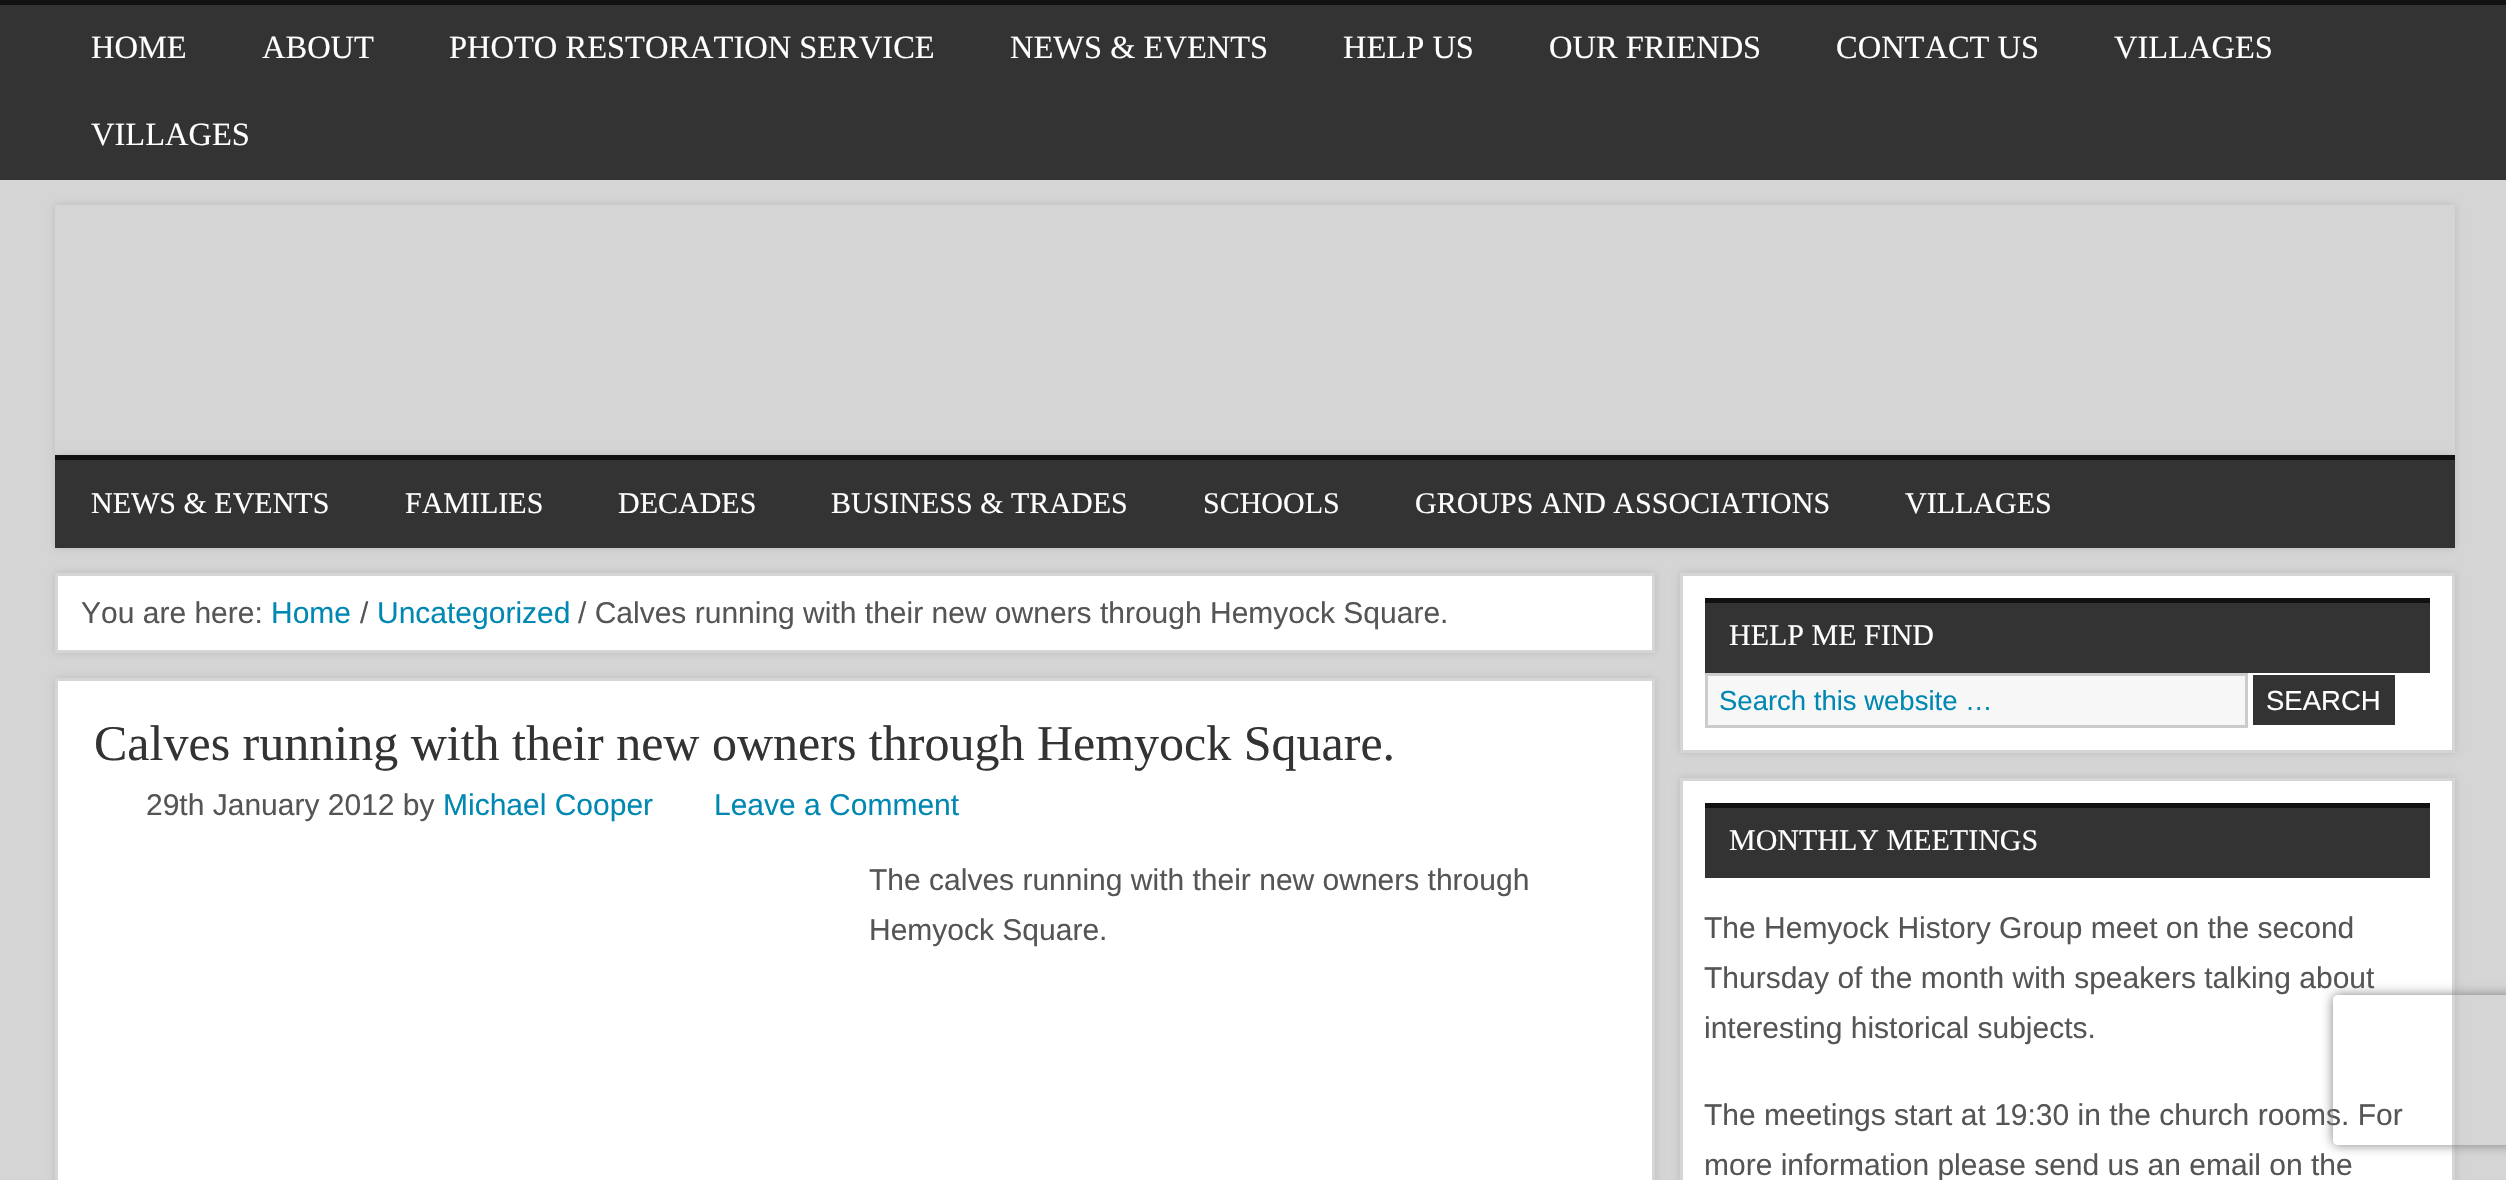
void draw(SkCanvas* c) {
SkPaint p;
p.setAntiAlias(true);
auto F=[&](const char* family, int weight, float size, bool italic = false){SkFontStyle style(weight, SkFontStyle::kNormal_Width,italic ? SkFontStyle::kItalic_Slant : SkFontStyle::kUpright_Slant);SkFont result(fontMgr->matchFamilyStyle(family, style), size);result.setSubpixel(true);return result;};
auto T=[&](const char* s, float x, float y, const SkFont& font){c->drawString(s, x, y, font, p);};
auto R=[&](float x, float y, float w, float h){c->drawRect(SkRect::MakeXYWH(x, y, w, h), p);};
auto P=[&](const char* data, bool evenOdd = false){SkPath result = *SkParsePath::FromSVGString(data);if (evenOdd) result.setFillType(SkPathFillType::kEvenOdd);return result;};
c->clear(0xffd5d5d5);
p.setColor(0xff333333);
R(0,5,2506,175);
p.setColor(0xff111111);
R(0,0,2506,5);
auto f1 = F("Liberation Serif",400,32.5);
p.setColor(0xffffffff);
T("HOME",91,58,f1);
T("ABOUT",262,58,f1);
T("PHOTO RESTORATION SERVICE",449,58,f1);
T("NEWS & EVENTS",1010,58,f1);
T("HELP US",1343,58,f1);
T("OUR FRIENDS",1549,58,f1);
T("CONTACT US",1836,58,f1);
T("VILLAGES",2114,58,f1);
T("VILLAGES",91,145,f1);
c->save();
c->clipPath(P("M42 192h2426v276h-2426zm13 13h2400v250h-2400z",true),true);
p.setColor(0xffbbbbbb);
p.setMaskFilter(SkMaskFilter::MakeBlur(kNormal_SkBlurStyle, 4));
c->drawRect(SkRect::MakeXYWH(55,205,2400,250),p);
p.setMaskFilter(nullptr);
c->restore();
p.setMaskFilter(SkMaskFilter::MakeBlur(kNormal_SkBlurStyle, 4));
c->drawRect(SkRect::MakeXYWH(55,455,2400,93),p);
p.setMaskFilter(nullptr);
p.setColor(0xff333333);
R(55,460,2400,88);
p.setColor(0xff111111);
R(55,455,2400,5);
auto f2 = F("Liberation Serif",400,30);
p.setColor(0xffffffff);
T("NEWS & EVENTS",91,513,f2);
T("FAMILIES",405,513,f2);
T("DECADES",618,513,f2);
T("BUSINESS & TRADES",831,513,f2);
T("SCHOOLS",1203,513,f2);
T("GROUPS AND ASSOCIATIONS",1415,513,f2);
T("VILLAGES",1905,513,f2);
p.setColor(0xffbbbbbb);
p.setMaskFilter(SkMaskFilter::MakeBlur(kNormal_SkBlurStyle, 4));
c->drawRect(SkRect::MakeXYWH(55,573,1600,80),p);
p.setMaskFilter(nullptr);
p.setColor(0xffffffff);
c->drawRect(SkRect::MakeXYWH(56.5,574.5,1597,77),p);
p.setStroke(true);
p.setStrokeWidth(3);
p.setColor(0xffd5d5d5);
c->drawRect(SkRect::MakeXYWH(56.5,574.5,1597,77),p);
auto f3 = F("Liberation Sans",400,30);
p.setStroke(false);
p.setColor(0xff555555);
T("You are here:",81,623,f3);
p.setColor(0xff0088b3);
T("Home",271,623,f3);
p.setColor(0xff555555);
T("/",360,623,f3);
p.setColor(0xff0088b3);
T("Uncategorized",377,623,f3);
p.setColor(0xff555555);
T("/ Calves running with their new owners through Hemyock Square.",578,623,f3);
p.setColor(0xffbbbbbb);
p.setMaskFilter(SkMaskFilter::MakeBlur(kNormal_SkBlurStyle, 4));
c->drawRect(SkRect::MakeXYWH(55,678,1600,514),p);
p.setMaskFilter(nullptr);
p.setColor(0xffffffff);
c->drawRect(SkRect::MakeXYWH(56.5,679.5,1597,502),p);
p.setStroke(true);
p.setColor(0xffd5d5d5);
c->drawRect(SkRect::MakeXYWH(56.5,679.5,1597,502),p);
auto f4 = F("Liberation Serif",400,50);
p.setStroke(false);
p.setColor(0xff333333);
T("Calves running with their new owners through Hemyock Square.",94,760,f4);
p.setColor(0xff555555);
T("29th January 2012 by",146,815,f3);
p.setColor(0xff0088b3);
T("Michael Cooper",443,815,f3);
T("Leave a Comment",714,815,f3);
p.setColor(0xff555555);
T("The calves running with their new owners through",869,890,f3);
T("Hemyock Square.",869,940,f3);
p.setColor(0xffbbbbbb);
p.setMaskFilter(SkMaskFilter::MakeBlur(kNormal_SkBlurStyle, 4));
c->drawRect(SkRect::MakeXYWH(1680,573,775,180),p);
p.setMaskFilter(nullptr);
p.setColor(0xffffffff);
c->drawRect(SkRect::MakeXYWH(1681.5,574.5,772,177),p);
p.setStroke(true);
p.setColor(0xffd5d5d5);
c->drawRect(SkRect::MakeXYWH(1681.5,574.5,772,177),p);
p.setStroke(false);
p.setColor(0xff333333);
R(1705,603,725,70);
p.setColor(0xff111111);
R(1705,598,725,5);
p.setColor(0xffffffff);
T("HELP ME FIND",1729,645,f2);
p.setColor(0xfff7f7f7);
c->drawRect(SkRect::MakeXYWH(1706.5,674.5,540,52),p);
p.setStroke(true);
p.setColor(0xffcccccc);
c->drawRect(SkRect::MakeXYWH(1706.5,674.5,540,52),p);
auto f5 = F("Liberation Sans",400,27.5);
p.setStroke(false);
p.setColor(0xff0088b3);
T("Search this website …",1719,710,f5);
p.setColor(0xff333333);
R(2253,675,142,50);
p.setColor(0xffffffff);
T("SEARCH",2266,710,f5);
p.setColor(0xffbbbbbb);
p.setMaskFilter(SkMaskFilter::MakeBlur(kNormal_SkBlurStyle, 4));
c->drawRect(SkRect::MakeXYWH(1680,778,775,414),p);
p.setMaskFilter(nullptr);
p.setColor(0xffffffff);
c->drawRect(SkRect::MakeXYWH(1681.5,779.5,772,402),p);
p.setStroke(true);
p.setColor(0xffd5d5d5);
c->drawRect(SkRect::MakeXYWH(1681.5,779.5,772,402),p);
p.setStroke(false);
p.setColor(0xff333333);
R(1705,808,725,70);
p.setColor(0xff111111);
R(1705,803,725,5);
p.setColor(0xffffffff);
T("MONTHLY MEETINGS",1729,850,f2);
p.setColor(0xff555555);
T("The Hemyock History Group meet on the second",1704,938,f3);
T("Thursday of the month with speakers talking about",1704,988,f3);
T("interesting historical subjects.",1704,1038,f3);
T("The meetings start at 19:30 in the church rooms. For",1704,1125,f3);
T("more information please send us an email on the",1704,1175,f3);
c->save();
c->clipPath(P("M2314 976h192v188h-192zm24 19h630c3 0 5 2 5 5v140c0 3-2 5-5 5h-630c-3 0-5-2-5-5v-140c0-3 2-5 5-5z",true),true);
p.setColor(0xff808080);
p.setMaskFilter(SkMaskFilter::MakeBlur(kNormal_SkBlurStyle, 6));
c->drawRoundRect(SkRect::MakeXYWH(2333,995,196,150),5,5,p);
p.setMaskFilter(nullptr);
c->restore();
}
